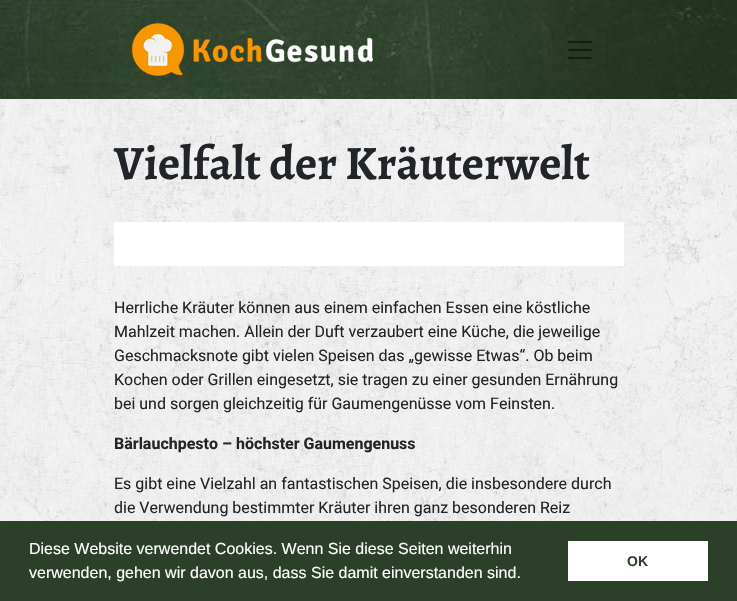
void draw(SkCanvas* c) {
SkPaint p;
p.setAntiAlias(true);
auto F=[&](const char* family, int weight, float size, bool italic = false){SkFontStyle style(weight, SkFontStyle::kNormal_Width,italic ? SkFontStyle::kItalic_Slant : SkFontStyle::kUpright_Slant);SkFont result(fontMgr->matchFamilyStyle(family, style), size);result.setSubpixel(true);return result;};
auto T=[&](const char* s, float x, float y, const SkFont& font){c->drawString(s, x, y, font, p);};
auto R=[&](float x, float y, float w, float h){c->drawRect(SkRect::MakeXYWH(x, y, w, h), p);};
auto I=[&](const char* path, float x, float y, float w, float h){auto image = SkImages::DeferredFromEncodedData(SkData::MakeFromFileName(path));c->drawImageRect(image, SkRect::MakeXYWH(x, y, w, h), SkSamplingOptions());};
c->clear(0xffffffff);
I("1.png",0,99,737,422);
I("2.png",0,0,737,99);
I("3.png",132,23,241,53);
p.setStroke(true);
p.setStrokeWidth(1);
p.setColor(0x1a000000);
c->drawRoundRect(SkRect::MakeXYWH(552.5,30.5,55,39),3.5,3.5,p);
I("4.png",568,41,24,18);
auto f1 = F("Alegreya",700,48);
p.setStroke(false);
p.setColor(0xff212529);
T("Vielfalt der Kräuterwelt",114,179,f1);
p.setColor(0xffffffff);
R(114,222,510,44);
auto f2 = F("Roboto",400,16);
p.setColor(0xff212529);
T("Herrliche Kräuter können aus einem einfachen Essen eine köstliche",114,313,f2);
T("Mahlzeit machen. Allein der Duft verzaubert eine Küche, die jeweilige",114,337,f2);
T("Geschmacksnote gibt vielen Speisen das „gewisse Etwas“. Ob beim",114,361,f2);
T("Kochen oder Grillen eingesetzt, sie tragen zu einer gesunden Ernährung",114,385,f2);
T("bei und sorgen gleichzeitig für Gaumengenüsse vom Feinsten.",114,409,f2);
auto f3 = F("Roboto",700,16);
T("Bärlauchpesto – höchster Gaumengenuss",114,449,f3);
T("Es gibt eine Vielzahl an fantastischen Speisen, die insbesondere durch",114,489,f2);
T("die Verwendung bestimmter Kräuter ihren ganz besonderen Reiz",114,513,f2);
p.setColor(0xff2c3f29);
R(0,521,737,80);
auto f4 = F("Liberation Sans",400,16);
p.setColor(0xffffffff);
T("Diese Website verwendet Cookies. Wenn Sie diese Seiten weiterhin",29,554,f4);
T("verwenden, gehen wir davon aus, dass Sie damit einverstanden sind.",29,578,f4);
R(568,541,140,40);
auto f5 = F("Liberation Sans",700,14);
p.setColor(0xff2c3f29);
T("OK",627,566,f5);
}
